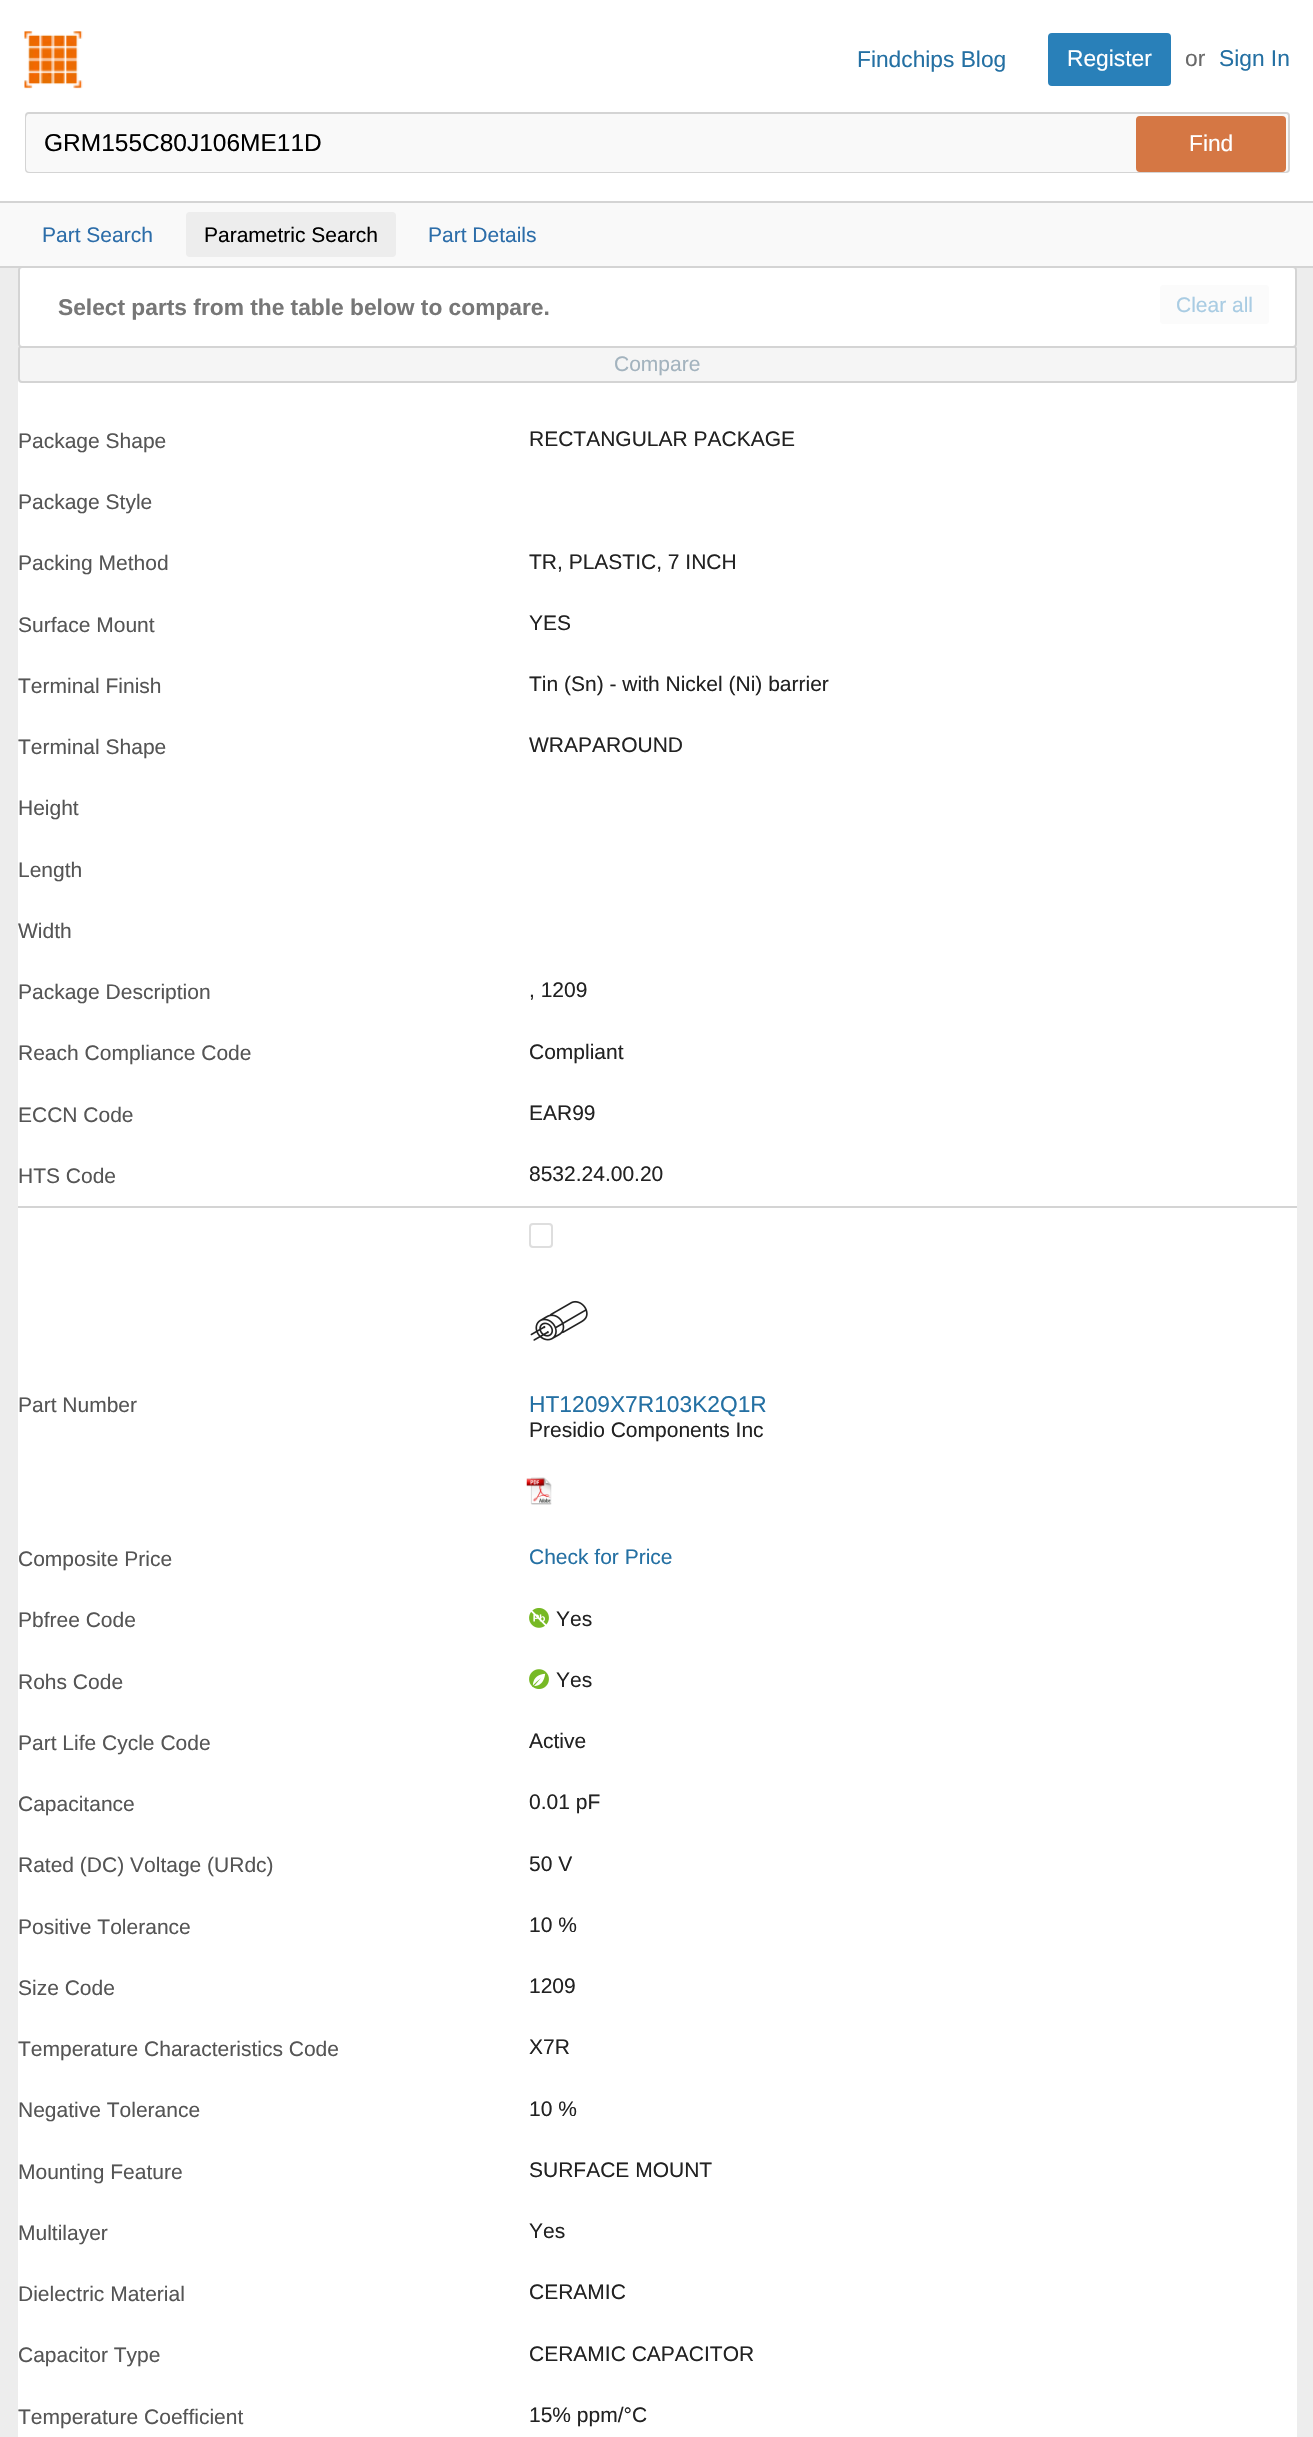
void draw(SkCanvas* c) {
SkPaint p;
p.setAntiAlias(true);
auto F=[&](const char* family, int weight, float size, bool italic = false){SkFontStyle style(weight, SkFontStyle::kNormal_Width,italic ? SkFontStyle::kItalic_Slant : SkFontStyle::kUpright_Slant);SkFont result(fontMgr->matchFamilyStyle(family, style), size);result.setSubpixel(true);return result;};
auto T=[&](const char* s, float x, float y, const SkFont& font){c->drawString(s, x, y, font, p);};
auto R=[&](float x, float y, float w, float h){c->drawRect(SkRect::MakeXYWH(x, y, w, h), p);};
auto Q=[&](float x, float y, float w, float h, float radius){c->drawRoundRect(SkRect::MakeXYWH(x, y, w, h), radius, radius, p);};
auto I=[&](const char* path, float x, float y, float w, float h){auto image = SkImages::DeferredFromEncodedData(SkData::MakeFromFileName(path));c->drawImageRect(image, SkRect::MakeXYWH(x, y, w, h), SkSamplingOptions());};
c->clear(0xffededed);
p.setColor(0xffffffff);
R(0,0,1313,201);
R(18,268,1279,2169);
p.setColor(0xfff5f5f5);
c->drawRoundRect(SkRect::MakeXYWH(19,346,1277,36),3,3,p);
p.setStroke(true);
p.setStrokeWidth(2);
p.setColor(0xffd4d4d4);
c->drawRoundRect(SkRect::MakeXYWH(19,346,1277,36),3,3,p);
p.setStroke(false);
p.setColor(0xffffffff);
c->drawRoundRect(SkRect::MakeXYWH(19,267,1277,80),3,3,p);
p.setStroke(true);
p.setColor(0xffd4d4d4);
c->drawRoundRect(SkRect::MakeXYWH(19,267,1277,80),3,3,p);
p.setStroke(false);
R(0,266,1313,2);
I("1.png",24,31,59,58);
auto f1 = F("Liberation Sans",400,22.75);
p.setColor(0xff2470a3);
T("Findchips Blog",857,67,f1);
p.setColor(0xff2980b9);
c->drawRoundRect(SkRect::MakeXYWH(1049,34,121,51),3,3,p);
p.setStroke(true);
c->drawRoundRect(SkRect::MakeXYWH(1049,34,121,51),3,3,p);
p.setStroke(false);
p.setColor(0xffffffff);
T("Register",1067,66,f1);
p.setColor(0xff696969);
T("or",1185,66,f1);
p.setColor(0xff2470a3);
T("Sign In",1219,66,f1);
p.setStroke(true);
p.setColor(0xffd4d4d4);
c->drawRoundRect(SkRect::MakeXYWH(26,113,1263,59),3,3,p);
p.setStroke(false);
p.setColor(0xfff9f9f9);
Q(26,114,1262,58,4);
auto f2 = F("Liberation Sans",400,24.5);
p.setColor(0xff000000);
T("GRM155C80J106ME11D",44,151,f2);
p.setColor(0xffd57744);
c->drawRoundRect(SkRect::MakeXYWH(1137,117,148,54),3,3,p);
p.setStroke(true);
c->drawRoundRect(SkRect::MakeXYWH(1137,117,148,54),3,3,p);
p.setStroke(false);
p.setColor(0xffffffff);
T("Find",1189,151,f1);
p.setColor(0xfff9f9f9);
R(0,203,1313,63);
p.setColor(0xffd4d4d4);
R(0,201,1313,2);
auto f3 = F("Liberation Sans",400,21);
p.setColor(0xff2c6da9);
T("Part Search",42,242,f3);
p.setColor(0xffededed);
Q(186,212,210,45,4);
p.setColor(0xff000000);
T("Parametric Search",204,242,f3);
p.setColor(0xff2c6da9);
T("Part Details",428,242,f3);
auto f4 = F("Liberation Sans",700,22.75);
p.setColor(0xff777777);
T("Select parts from the table below to compare.",58,315,f4);
p.setColor(0xfffbfbfb);
Q(1160,285,109,39,4);
p.setColor(0xffa9cce3);
T("Clear all",1176,312,f3);
p.setColor(0xffa3b3be);
T("Compare",614,371,f3);
p.setColor(0xff555555);
T("Package Shape",18,448,f3);
p.setColor(0xff222222);
T("RECTANGULAR PACKAGE",529,446,f3);
p.setColor(0xff555555);
T("Package Style",18,509,f3);
T("Packing Method",18,570,f3);
p.setColor(0xff222222);
T("TR, PLASTIC, 7 INCH",529,569,f3);
p.setColor(0xff555555);
T("Surface Mount",18,632,f3);
p.setColor(0xff222222);
T("YES",529,630,f3);
p.setColor(0xff555555);
T("Terminal Finish",18,693,f3);
p.setColor(0xff222222);
T("Tin (Sn) - with Nickel (Ni) barrier",529,691,f3);
p.setColor(0xff555555);
T("Terminal Shape",18,754,f3);
p.setColor(0xff222222);
T("WRAPAROUND",529,752,f3);
p.setColor(0xff555555);
T("Height",18,815,f3);
T("Length",18,877,f3);
T("Width",18,938,f3);
T("Package Description",18,999,f3);
p.setColor(0xff222222);
T(", 1209",529,997,f3);
p.setColor(0xff555555);
T("Reach Compliance Code",18,1060,f3);
p.setColor(0xff222222);
T("Compliant",529,1059,f3);
p.setColor(0xff555555);
T("ECCN Code",18,1122,f3);
p.setColor(0xff222222);
T("EAR99",529,1120,f3);
p.setColor(0xff555555);
T("HTS Code",18,1183,f3);
p.setColor(0xff222222);
T("8532.24.00.20",529,1181,f3);
p.setColor(0xffd4d4d4);
R(18,1206,1279,2);
p.setStroke(true);
p.setColor(0xffdedede);
c->drawRoundRect(SkRect::MakeXYWH(530,1224,22,23),3,3,p);
I("2.png",530,1300,58,41);
p.setStroke(false);
p.setColor(0xff555555);
T("Part Number",18,1412,f3);
p.setColor(0xff2470a3);
T("HT1209X7R103K2Q1R",529,1412,f1);
p.setColor(0xff222222);
T("Presidio Components Inc",529,1437,f3);
I("3.png",526,1477,26,28);
p.setColor(0xff555555);
T("Composite Price",18,1566,f3);
p.setColor(0xff2470a3);
T("Check for Price",529,1564,f3);
p.setColor(0xff555555);
T("Pbfree Code",18,1627,f3);
I("4.png",529,1608,20,20);
p.setColor(0xff222222);
T("Yes",556,1626,f3);
p.setColor(0xff555555);
T("Rohs Code",18,1689,f3);
I("5.png",529,1669,20,20);
p.setColor(0xff222222);
T("Yes",556,1687,f3);
p.setColor(0xff555555);
T("Part Life Cycle Code",18,1750,f3);
p.setColor(0xff222222);
T("Active",529,1748,f3);
p.setColor(0xff555555);
T("Capacitance",18,1811,f3);
p.setColor(0xff222222);
T("0.01 pF",529,1809,f3);
p.setColor(0xff555555);
T("Rated (DC) Voltage (URdc)",18,1872,f3);
p.setColor(0xff222222);
T("50 V",529,1871,f3);
p.setColor(0xff555555);
T("Positive Tolerance",18,1934,f3);
p.setColor(0xff222222);
T("10 %",529,1932,f3);
p.setColor(0xff555555);
T("Size Code",18,1995,f3);
p.setColor(0xff222222);
T("1209",529,1993,f3);
p.setColor(0xff555555);
T("Temperature Characteristics Code",18,2056,f3);
p.setColor(0xff222222);
T("X7R",529,2054,f3);
p.setColor(0xff555555);
T("Negative Tolerance",18,2117,f3);
p.setColor(0xff222222);
T("10 %",529,2116,f3);
p.setColor(0xff555555);
T("Mounting Feature",18,2179,f3);
p.setColor(0xff222222);
T("SURFACE MOUNT",529,2177,f3);
p.setColor(0xff555555);
T("Multilayer",18,2240,f3);
p.setColor(0xff222222);
T("Yes",529,2238,f3);
p.setColor(0xff555555);
T("Dielectric Material",18,2301,f3);
p.setColor(0xff222222);
T("CERAMIC",529,2299,f3);
p.setColor(0xff555555);
T("Capacitor Type",18,2362,f3);
p.setColor(0xff222222);
T("CERAMIC CAPACITOR",529,2361,f3);
p.setColor(0xff555555);
T("Temperature Coefficient",18,2424,f3);
p.setColor(0xff222222);
T("15% ppm/°C",529,2422,f3);
}
